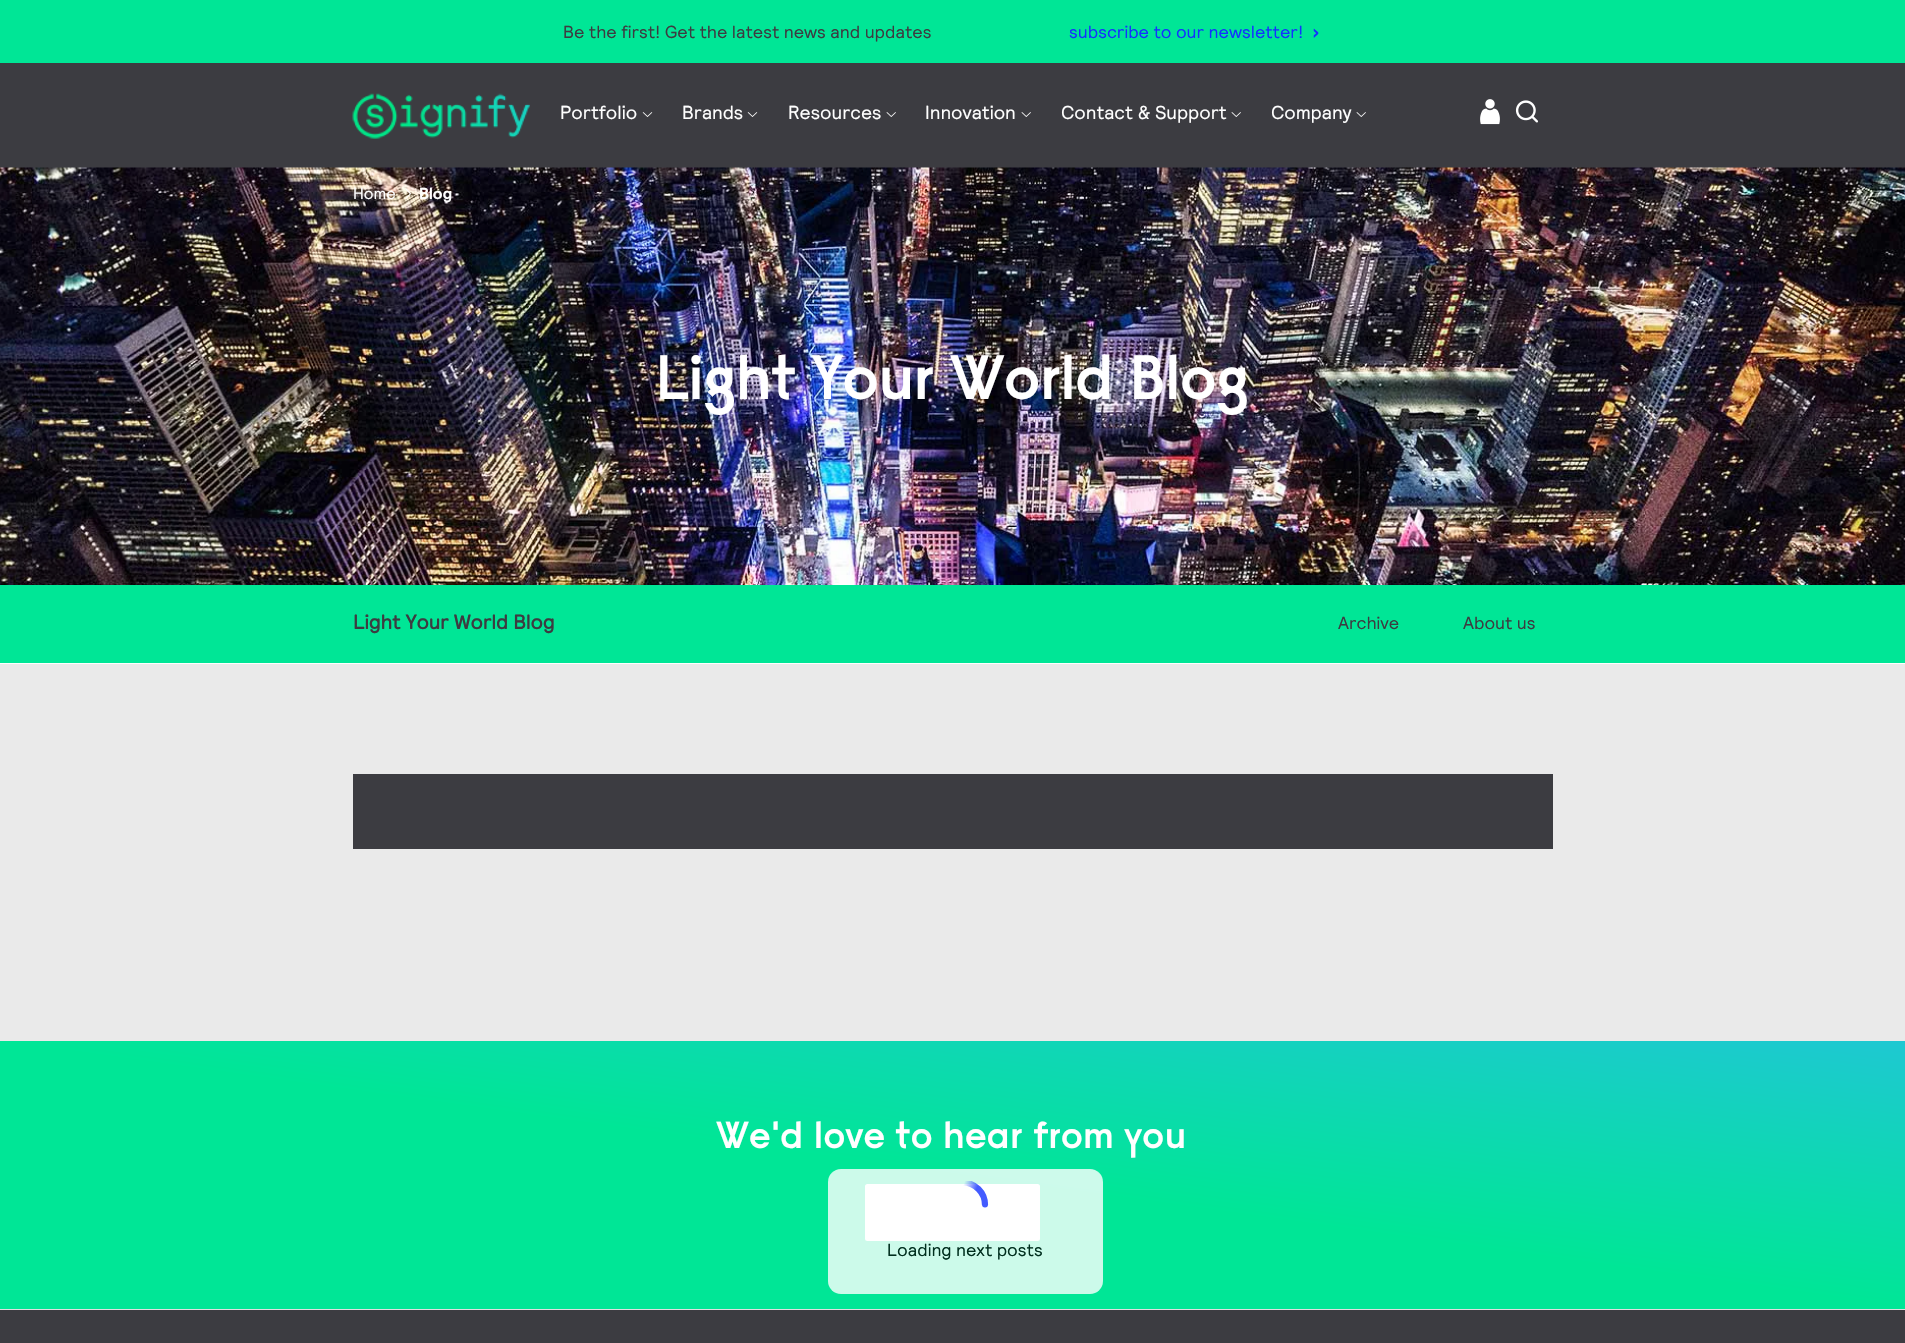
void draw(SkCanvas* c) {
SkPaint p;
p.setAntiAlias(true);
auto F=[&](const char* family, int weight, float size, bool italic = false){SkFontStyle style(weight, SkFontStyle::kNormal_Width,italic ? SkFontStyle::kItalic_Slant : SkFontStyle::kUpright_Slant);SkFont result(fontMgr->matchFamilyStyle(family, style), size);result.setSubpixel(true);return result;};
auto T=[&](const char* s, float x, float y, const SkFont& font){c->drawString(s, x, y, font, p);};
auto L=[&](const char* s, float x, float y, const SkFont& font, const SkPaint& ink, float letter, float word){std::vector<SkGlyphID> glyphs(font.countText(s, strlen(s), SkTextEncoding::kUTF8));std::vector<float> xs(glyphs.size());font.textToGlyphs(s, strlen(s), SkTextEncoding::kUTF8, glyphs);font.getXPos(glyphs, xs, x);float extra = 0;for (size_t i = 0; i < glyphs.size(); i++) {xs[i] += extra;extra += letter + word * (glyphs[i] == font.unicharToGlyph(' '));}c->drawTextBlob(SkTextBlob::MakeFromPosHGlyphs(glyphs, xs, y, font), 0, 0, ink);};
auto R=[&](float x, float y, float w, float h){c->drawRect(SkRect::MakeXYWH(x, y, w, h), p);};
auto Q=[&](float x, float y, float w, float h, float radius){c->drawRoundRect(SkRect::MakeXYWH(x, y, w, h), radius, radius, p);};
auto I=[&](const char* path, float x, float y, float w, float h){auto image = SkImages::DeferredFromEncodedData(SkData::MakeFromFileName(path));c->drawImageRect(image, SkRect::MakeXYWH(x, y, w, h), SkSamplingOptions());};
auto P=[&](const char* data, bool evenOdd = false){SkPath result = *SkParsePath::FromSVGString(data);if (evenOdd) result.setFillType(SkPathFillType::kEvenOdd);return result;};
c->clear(0xffffffff);
p.setColor(0xff00e696);
R(0,0,1905,63);
auto f1 = F("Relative",400,17.5);
p.setColor(0xff3c3c41);
T("Be the first! Get the latest news and updates",563,38,f1);
p.setColor(0xff1432ff);
T("subscribe to our newsletter!",1069,38,f1);
auto f2 = F("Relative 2",700,17.5);
T("›",1313,38,f2);
p.setColor(0xff3c3c41);
R(0,63,1905,105);
I("1.png",352,93,178,46);
auto f3 = F("Relative",400,18.75);
p.setColor(0xffffffff);
T("Portfolio",560,119,f3);
I("2.png",642,112,11,5);
T("Brands",682,119,f3);
I("2.png",747,112,11,5);
T("Resources",788,119,f3);
I("3.png",886,112,10,5);
T("Innovation",925,119,f3);
I("3.png",1021,112,10,5);
T("Contact & Support",1061,119,f3);
I("3.png",1231,112,10,5);
T("Company",1271,119,f3);
I("3.png",1356,112,10,5);
I("4.png",1480,99,20,26);
I("5.png",1515,100,23,23);
I("7.png",0,167,1905,418);
auto f4 = F("Relative",400,16);
T("Home",353,199,f4);
I("6.png",405,188,6,12);
auto f5 = F("Relative 2",700,16);
T("Blog",419,199,f5);
auto f6 = F("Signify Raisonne",600,62.5);
L("Light Your World Blog",655,399,f6,p,-1.25,0);
p.setColor(0xff00e696);
R(0,585,1905,78);
auto f7 = F("Relative",700,20);
p.setColor(0xff3c3c41);
T("Light Your World Blog",353,629,f7);
T("Archive",1338,629,f1);
T("About us",1463,629,f1);
p.setColor(0xffeaeaea);
R(0,664,1905,377);
p.setColor(0xff3c3c41);
R(353,774,1200,75);
{
const SkColor colors[] = {0xff00e696,0xff00e696,0xff1ec8d2};
const float stops[] = {0,.5,1};
const SkPoint ends[] = {{916,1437}, {989,913}};
p.setShader(SkGradientShader::MakeLinear(ends, colors, stops, 3, SkTileMode::kClamp));
p.setAlpha(255);
}
R(0,1041,1905,268);
p.setShader(nullptr);
p.setColor(0xffffffff);
c->drawRoundRect(SkRect::MakeXYWH(866.5,1185.5,172,54),1,1,p);
p.setStroke(true);
p.setStrokeWidth(3);
c->drawRoundRect(SkRect::MakeXYWH(866.5,1185.5,172,54),1,1,p);
p.setStroke(false);
p.setColor(0xccffffff);
Q(828,1169,275,125,13);
c->save();
c->clipRect(SkRect::MakeXYWH(941,1181,48,48));
p.setStroke(true);
p.setStrokeWidth(6.2);
{
const SkColor colors[] = {0x001432ff,0x801432ff,0xcc1432ff};
const float stops[] = {0,.63,1};
const SkPoint ends[] = {{964,1183}, {977,1188}};
p.setShader(SkGradientShader::MakeLinear(ends, colors, stops, 3, SkTileMode::kClamp));
p.setAlpha(255);
}
c->drawPath(P("M985 1205c0-12.5-10-22.5-22.5-22.5"),p);
c->restore();
p.setStroke(false);
p.setShader(nullptr);
p.setColor(0xff435bff);
c->drawCircle(985,1204.5,3,p);
p.setColor(0xff002e1e);
T("Loading next posts",887,1256,f1);
auto f8 = F("Signify Raisonne",600,37.5);
p.setColor(0xffffffff);
L("We'd love to hear from you",716,1148,f8,p,-.25,0);
p.setColor(0xffe0e0e0);
R(0,1309,1905,1);
p.setColor(0xff3c3c41);
R(0,1310,1905,33);
}
